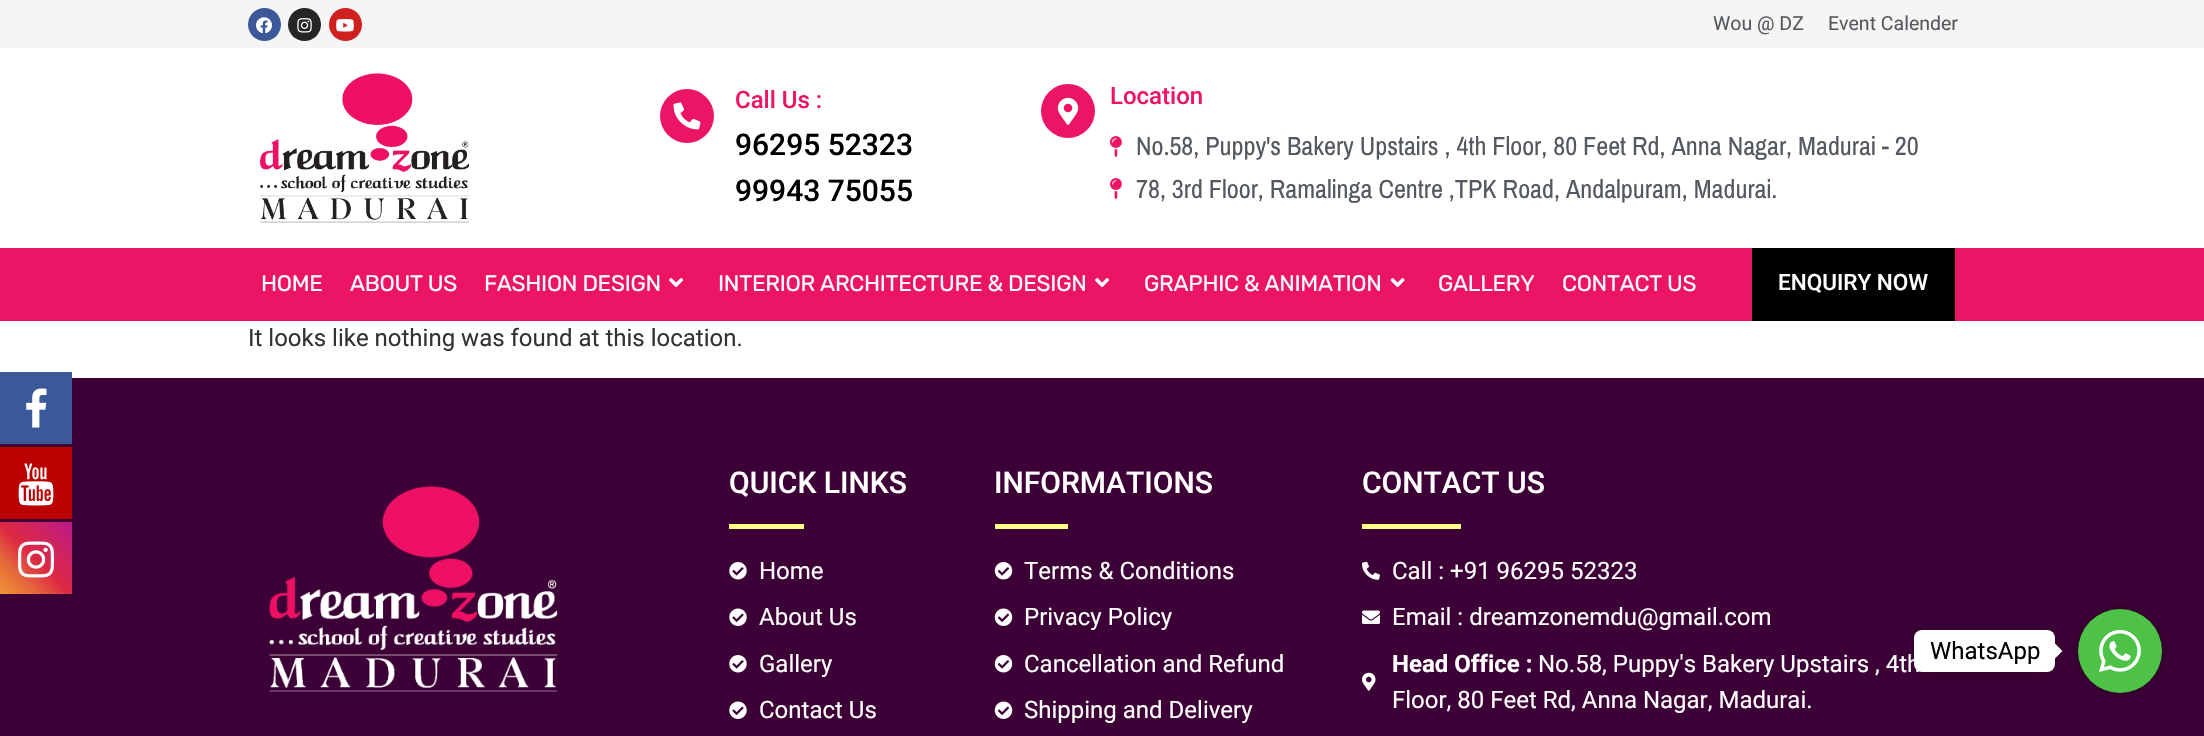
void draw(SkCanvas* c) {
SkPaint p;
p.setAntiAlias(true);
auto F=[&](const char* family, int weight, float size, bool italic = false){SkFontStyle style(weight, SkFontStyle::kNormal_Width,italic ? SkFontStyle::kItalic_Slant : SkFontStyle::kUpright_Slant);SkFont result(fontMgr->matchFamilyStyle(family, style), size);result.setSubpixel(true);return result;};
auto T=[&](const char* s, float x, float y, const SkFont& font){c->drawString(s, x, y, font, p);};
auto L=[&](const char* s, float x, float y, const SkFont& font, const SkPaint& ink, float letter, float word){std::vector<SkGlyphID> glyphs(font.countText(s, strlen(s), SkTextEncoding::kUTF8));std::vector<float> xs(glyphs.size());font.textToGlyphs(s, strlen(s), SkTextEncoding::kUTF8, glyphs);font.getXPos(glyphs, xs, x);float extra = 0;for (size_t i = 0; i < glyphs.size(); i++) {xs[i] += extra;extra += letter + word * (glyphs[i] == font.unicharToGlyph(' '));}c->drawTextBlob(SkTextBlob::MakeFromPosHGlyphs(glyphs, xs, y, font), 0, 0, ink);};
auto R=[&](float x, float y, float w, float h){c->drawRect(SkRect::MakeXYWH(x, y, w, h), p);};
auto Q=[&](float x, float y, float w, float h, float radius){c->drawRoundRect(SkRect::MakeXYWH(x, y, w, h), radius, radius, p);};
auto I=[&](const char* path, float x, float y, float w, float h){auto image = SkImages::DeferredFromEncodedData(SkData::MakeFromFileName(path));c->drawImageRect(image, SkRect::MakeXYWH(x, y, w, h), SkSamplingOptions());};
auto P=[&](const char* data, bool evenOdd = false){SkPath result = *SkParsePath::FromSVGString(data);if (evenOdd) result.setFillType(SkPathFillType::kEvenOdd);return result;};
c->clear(0xffffffff);
p.setColor(0xff3c0036);
R(0,378,2204,358);
p.setColor(0xff3b5998);
R(0,372,72,72);
I("1.png",26,388,21,40);
p.setColor(0xffbb0000);
R(0,447,72,72);
I("2.png",18,463,36,43);
{
const SkColor colors[] = {0xfff09433,0xffe6683c,0xffdc2743,0xffcc2366,0xffbc1888};
const float stops[] = {0,.25,.5,.75,1};
const SkPoint ends[] = {{0,594}, {72,522}};
p.setShader(SkGradientShader::MakeLinear(ends, colors, stops, 5, SkTileMode::kClamp));
p.setAlpha(255);
}
R(0,522,72,72);
I("3.png",18,541,36,37);
p.setShader(nullptr);
p.setColor(0xfff5f5f5);
R(0,0,2204,48);
p.setColor(0xff3b5998);
c->drawCircle(264.5,24.5,16.5,p);
I("4.png",256,17,16,17);
p.setColor(0xff262626);
c->drawCircle(304.5,24.5,16.5,p);
I("5.png",297,18,15,15);
p.setColor(0xffcd201f);
c->drawCircle(345.5,24.5,16.5,p);
I("6.png",336,19,18,13);
auto f1 = F("Roboto",400,19.5);
p.setColor(0xff54595f);
T("Wou @ DZ",1713,30,f1);
T("Event Calender",1828,30,f1);
I("7.png",259,73,211,150);
p.setColor(0xffec1464);
c->drawCircle(687,116,27,p);
I("8.png",673,102,28,28);
auto f2 = F("Roboto",500,24);
T("Call Us :",735,108,f2);
auto f3 = F("Roboto",500,30);
p.setColor(0xff000000);
T("96295 52323",735,155,f3);
T("99943 75055",735,201,f3);
p.setColor(0xffec1464);
c->drawCircle(1068,111,27,p);
I("9.png",1057,97,22,28);
T("Location",1110,104,f2);
I("10.png",1110,136,12,22);
auto f4 = F("Pragati Narrow",400,28.5);
p.setColor(0xff54595f);
T("No.58, Puppy's Bakery Upstairs , 4th Floor, 80 Feet Rd, Anna Nagar, Madurai - 20",1136,155,f4);
I("10.png",1110,178,12,22);
T("78, 3rd Floor, Ramalinga Centre ,TPK Road, Andalpuram, Madurai.",1136,198,f4);
p.setColor(0xffec1464);
R(0,248,2204,73);
auto f5 = F("Rubik",400,22.5);
p.setColor(0xffffffff);
L("HOME",261,291,f5,p,-.3,0);
L("ABOUT US",350,291,f5,p,-.3,0);
L("FASHION DESIGN",484,291,f5,p,-.3,0);
I("11.png",669,278,15,10);
L("INTERIOR ARCHITECTURE & DESIGN",718,291,f5,p,-.3,0);
I("11.png",1095,278,15,10);
L("GRAPHIC & ANIMATION",1144,291,f5,p,-.3,0);
I("12.png",1390,278,15,10);
L("GALLERY",1438,291,f5,p,-.3,0);
L("CONTACT US",1562,291,f5,p,-.3,0);
p.setColor(0xff000000);
R(1752,248,203,73);
auto f6 = F("Roboto",500,22.5);
p.setColor(0xffffffff);
T("ENQUIRY NOW",1778,290,f6);
auto f7 = F("Roboto",400,24);
p.setColor(0xff333333);
T("It looks like nothing was found at this location.",248,346,f7);
I("13.png",269,486,289,206);
p.setColor(0xffffffff);
T("QUICK LINKS",729,493,f3);
p.setColor(0xfffeff84);
R(729,524,75,5);
I("14.png",729,562,18,18);
p.setColor(0xffffffff);
T("Home",759,579,f7);
I("15.png",729,608,18,18);
T("About Us",759,625,f7);
I("14.png",729,655,18,18);
T("Gallery",759,672,f7);
I("15.png",729,701,18,18);
T("Contact Us",759,718,f7);
T("INFORMATIONS",994,493,f3);
p.setColor(0xfffeff84);
R(995,524,73,5);
I("16.png",994,562,19,18);
p.setColor(0xffffffff);
T("Terms & Conditions",1024,579,f7);
I("17.png",994,608,19,18);
T("Privacy Policy",1024,625,f7);
I("16.png",994,655,19,18);
T("Cancellation and Refund",1024,672,f7);
I("17.png",994,701,19,18);
T("Shipping and Delivery",1024,718,f7);
T("CONTACT US",1362,493,f3);
p.setColor(0xfffeff84);
R(1362,524,99,5);
I("18.png",1362,561,18,19);
p.setColor(0xffffffff);
T("Call : +91 96295 52323",1392,579,f7);
I("19.png",1362,610,18,14);
T("Email : dreamzonemdu@gmail.com",1392,625,f7);
I("20.png",1362,672,14,19);
auto f8 = F("Roboto",700,24);
T("Head Office :",1392,672,f8);
T("No.58, Puppy's Bakery Upstairs , 4th",1538,672,f7);
T("Floor, 80 Feet Rd, Anna Nagar, Madurai.",1392,708,f7);
p.setColor(0x66000000);
p.setMaskFilter(SkMaskFilter::MakeBlur(kNormal_SkBlurStyle, 4.5));
c->drawRoundRect(SkRect::MakeXYWH(2078,609,84,84),42,42,p);
p.setMaskFilter(nullptr);
p.setColor(0xff4dc247);
c->drawCircle(2120,651,42,p);
p.setColor(0x33000000);
p.setMaskFilter(SkMaskFilter::MakeBlur(kNormal_SkBlurStyle, 7.5));
c->drawRoundRect(SkRect::MakeXYWH(1914,630,141,42),8,8,p);
p.setMaskFilter(nullptr);
p.setColor(0xffffffff);
Q(1914,630,141,42,8);
p.setColor(0xff000000);
T("WhatsApp",1930,659,f7);
p.setColor(0xffffffff);
c->drawPath(P("M2055 658.5v-15l7.5 7.5z"),p);
I("21.png",2099,630,42,42);
}
